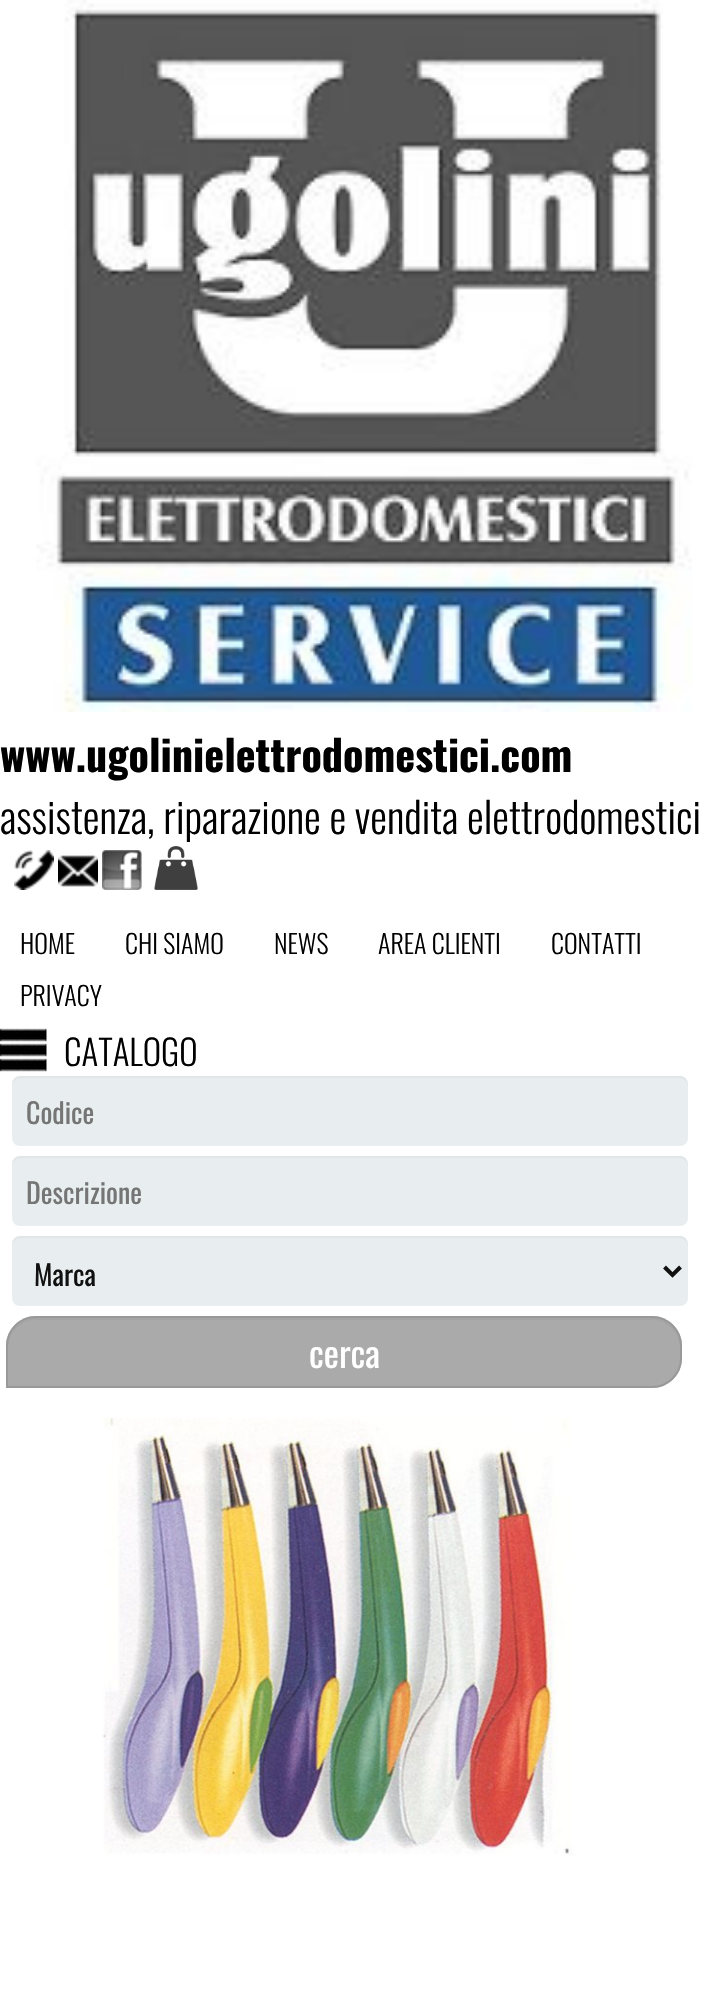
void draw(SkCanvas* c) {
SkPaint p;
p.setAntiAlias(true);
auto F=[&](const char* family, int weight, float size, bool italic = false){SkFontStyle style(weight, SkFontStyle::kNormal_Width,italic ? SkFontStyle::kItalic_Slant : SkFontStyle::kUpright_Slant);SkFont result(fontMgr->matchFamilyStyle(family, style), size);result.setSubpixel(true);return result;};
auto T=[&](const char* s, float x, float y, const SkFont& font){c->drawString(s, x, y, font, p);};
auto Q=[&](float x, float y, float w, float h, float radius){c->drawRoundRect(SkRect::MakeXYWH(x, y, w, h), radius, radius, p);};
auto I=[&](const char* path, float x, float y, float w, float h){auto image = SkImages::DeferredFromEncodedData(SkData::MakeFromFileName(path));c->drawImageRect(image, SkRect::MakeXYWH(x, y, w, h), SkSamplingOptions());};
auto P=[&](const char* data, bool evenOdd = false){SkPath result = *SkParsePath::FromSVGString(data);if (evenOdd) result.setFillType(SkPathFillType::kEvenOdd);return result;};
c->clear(0xffffffff);
I("1.png",36,0,656,712);
auto f1 = F("Oswald",700,42.25);
p.setColor(0xff000000);
T("www.ugolinielettrodomestici.com",0,772,f1);
auto f2 = F("Oswald",300,42.25);
T("assistenza, riparazione e vendita elettrodomestici",0,834,f2);
I("2.png",14,850,40,40);
I("3.png",58,855,40,32);
I("4.png",102,850,40,40);
I("5.png",154,846,44,44);
auto f3 = F("Oswald",300,26);
T("HOME",20,954,f3);
T("CHI SIAMO",125,954,f3);
T("NEWS",274,954,f3);
T("AREA CLIENTI",378,954,f3);
T("CONTATTI",551,954,f3);
T("PRIVACY",20,1006,f3);
I("6.png",0,1028,47,44);
auto f4 = F("Oswald",300,35);
T("CATALOGO",64,1066,f4);
p.setColor(0xffe8eeef);
Q(12,1076,676,70,8);
p.setColor(0x08000000);
c->drawPath(P("M20 1078h660c4 0 8 4 8 8v-2c0-4-4-8-8-8h-660c-4 0-8 4-8 8v2c0-4 4-8 8-8z"),p);
auto f5 = F("Oswald",400,28);
p.setColor(0xff757575);
T("Codice",26,1124,f5);
p.setColor(0xffe8eeef);
Q(12,1156,676,70,8);
p.setColor(0x08000000);
c->drawPath(P("M20 1158h660c4 0 8 4 8 8v-2c0-4-4-8-8-8h-660c-4 0-8 4-8 8v2c0-4 4-8 8-8z"),p);
p.setColor(0xff757575);
T("Descrizione",26,1204,f5);
p.setColor(0xffe8eeef);
Q(12,1236,676,70,8);
p.setColor(0x08000000);
c->drawPath(P("M20 1238h660c4 0 8 4 8 8v-2c0-4-4-8-8-8h-660c-4 0-8 4-8 8v2c0-4 4-8 8-8z"),p);
p.setStroke(true);
p.setStrokeWidth(4);
p.setColor(0xff111111);
c->drawPath(P("M664.5 1267l8 8l8-8"),p);
p.setStroke(false);
T("Marca",34,1286,f5);
p.setColor(0xffaaaaaa);
c->drawPath(P("M36 1316h616c16.5 0 30 13.5 30 30v12c0 16.5-13.5 30-30 30h-646v-42c0-16.5 13.5-30 30-30z"),p);
p.setColor(0xffa5a5a5);
c->drawPath(P("M36 1320h616c15 0 28 13 28 28v-2c0-15-13-28-28-28h-616c-15 0-28 13-28 28v2c0-15 13-28 28-28z"),p);
p.setStroke(true);
p.setStrokeWidth(2);
p.setColor(0xff999999);
c->drawPath(P("M36 1317h616c16 0 29 13 29 29v12c0 16-13 29-29 29h-645v-41c0-16 13-29 29-29z"),p);
auto f6 = F("Oswald",400,36);
p.setStroke(false);
p.setColor(0xffffffff);
T("cerca",309,1368,f6);
I("7.png",102,1418,471,437);
}
